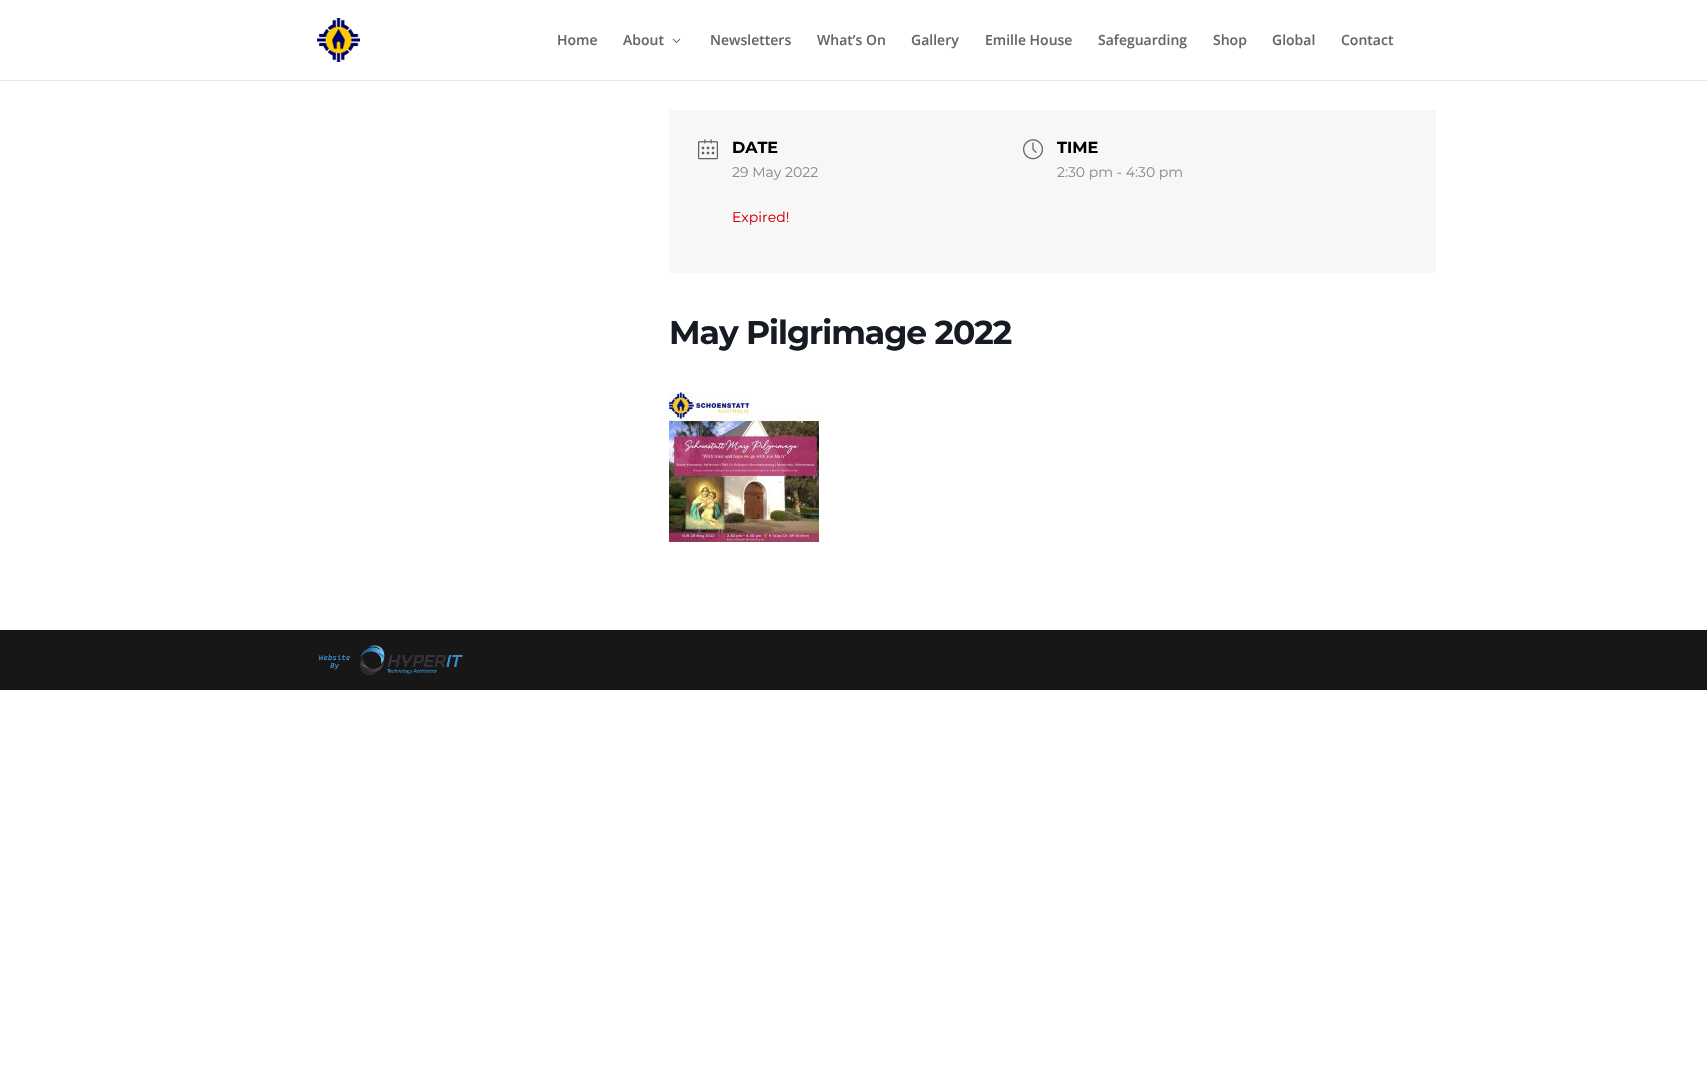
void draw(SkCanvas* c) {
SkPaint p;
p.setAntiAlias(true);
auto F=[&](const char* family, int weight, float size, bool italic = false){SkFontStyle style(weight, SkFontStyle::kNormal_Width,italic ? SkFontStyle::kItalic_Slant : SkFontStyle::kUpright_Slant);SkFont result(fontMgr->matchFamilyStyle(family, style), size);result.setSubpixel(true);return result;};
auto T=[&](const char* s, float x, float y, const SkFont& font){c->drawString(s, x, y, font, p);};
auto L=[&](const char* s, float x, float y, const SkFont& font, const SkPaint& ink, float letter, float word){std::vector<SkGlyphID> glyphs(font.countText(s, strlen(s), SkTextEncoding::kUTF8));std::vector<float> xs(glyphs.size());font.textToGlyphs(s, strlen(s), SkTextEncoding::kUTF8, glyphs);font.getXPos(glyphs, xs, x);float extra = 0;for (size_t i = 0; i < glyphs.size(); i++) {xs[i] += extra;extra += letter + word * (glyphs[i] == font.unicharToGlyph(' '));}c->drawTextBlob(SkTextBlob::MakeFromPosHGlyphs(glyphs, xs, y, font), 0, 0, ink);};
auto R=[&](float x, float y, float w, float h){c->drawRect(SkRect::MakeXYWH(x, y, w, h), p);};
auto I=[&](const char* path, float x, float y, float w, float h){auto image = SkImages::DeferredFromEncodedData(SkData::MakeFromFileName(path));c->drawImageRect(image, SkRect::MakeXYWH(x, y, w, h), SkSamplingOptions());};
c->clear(0xffffffff);
p.setColor(0xffe6e6e6);
R(0,80,1707,1);
I("1.png",317,18,43,44);
auto f1 = F("Open Sans",600,14);
p.setColor(0xff666666);
T("Home",557,45,f1);
T("About",623,45,f1);
I("2.png",672,38,9,5);
T("Newsletters",710,45,f1);
T("What’s On",817,45,f1);
T("Gallery",911,45,f1);
T("Emille House",985,45,f1);
T("Safeguarding",1098,45,f1);
T("Shop",1213,45,f1);
T("Global",1272,45,f1);
T("Contact",1341,45,f1);
p.setColor(0xfff7f7f7);
R(669,110,767,163);
I("3.png",698,139,20,21);
auto f2 = F("Montserrat",700,16);
p.setColor(0xff000000);
T("DATE",732,153,f2);
auto f3 = F("Montserrat",400,14);
p.setColor(0xff8d8d8d);
T("29 May 2022",732,177,f3);
p.setColor(0xffd8000c);
T("Expired!",732,222,f3);
I("4.png",1023,139,20,21);
p.setColor(0xff000000);
T("TIME",1057,153,f2);
p.setColor(0xff8d8d8d);
T("2:30 pm - 4:30 pm",1057,177,f3);
auto f4 = F("Montserrat",700,33);
p.setColor(0xff171c24);
L("May Pilgrimage 2022",669,344,f4,p,-1,0);
I("5.png",669,392,150,150);
p.setColor(0xff171717);
R(0,630,1707,60);
I("6.png",319,645,144,30);
}
